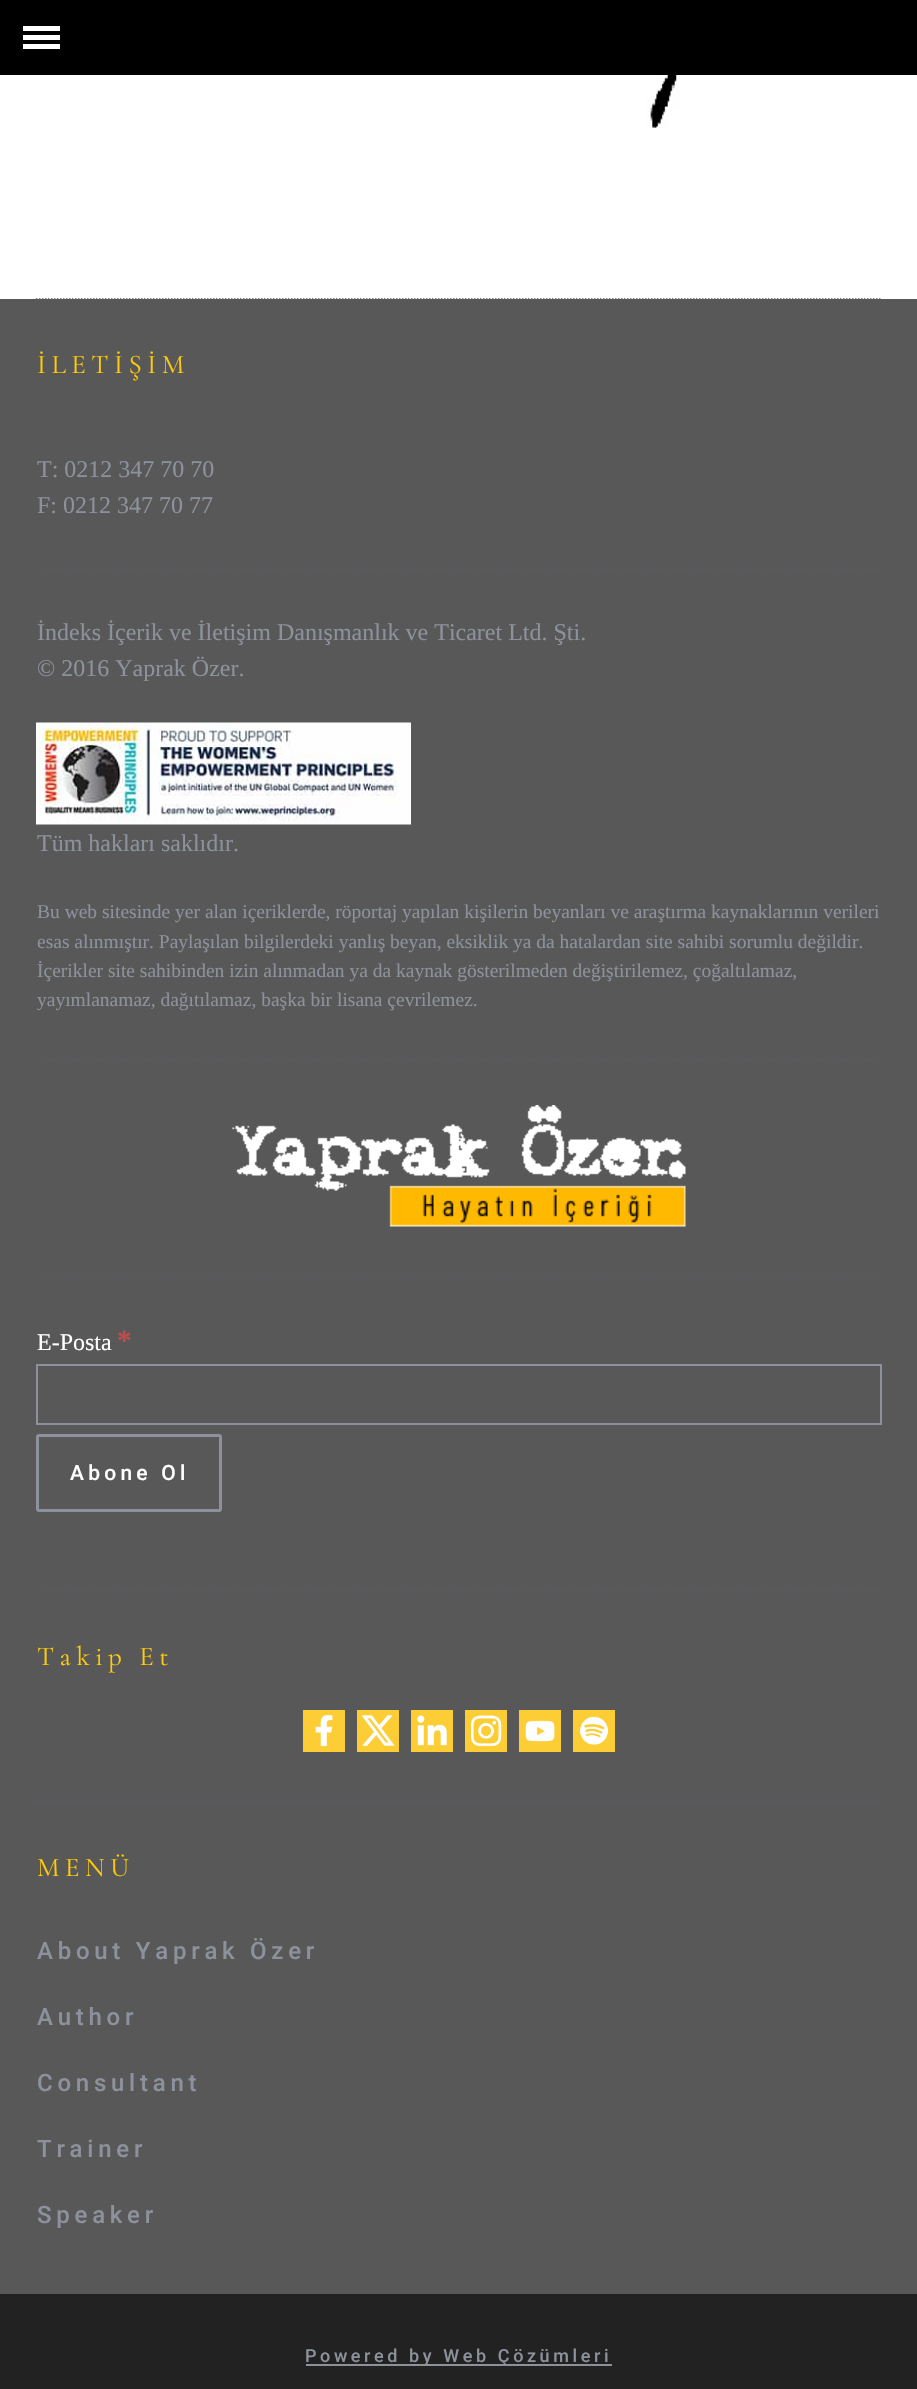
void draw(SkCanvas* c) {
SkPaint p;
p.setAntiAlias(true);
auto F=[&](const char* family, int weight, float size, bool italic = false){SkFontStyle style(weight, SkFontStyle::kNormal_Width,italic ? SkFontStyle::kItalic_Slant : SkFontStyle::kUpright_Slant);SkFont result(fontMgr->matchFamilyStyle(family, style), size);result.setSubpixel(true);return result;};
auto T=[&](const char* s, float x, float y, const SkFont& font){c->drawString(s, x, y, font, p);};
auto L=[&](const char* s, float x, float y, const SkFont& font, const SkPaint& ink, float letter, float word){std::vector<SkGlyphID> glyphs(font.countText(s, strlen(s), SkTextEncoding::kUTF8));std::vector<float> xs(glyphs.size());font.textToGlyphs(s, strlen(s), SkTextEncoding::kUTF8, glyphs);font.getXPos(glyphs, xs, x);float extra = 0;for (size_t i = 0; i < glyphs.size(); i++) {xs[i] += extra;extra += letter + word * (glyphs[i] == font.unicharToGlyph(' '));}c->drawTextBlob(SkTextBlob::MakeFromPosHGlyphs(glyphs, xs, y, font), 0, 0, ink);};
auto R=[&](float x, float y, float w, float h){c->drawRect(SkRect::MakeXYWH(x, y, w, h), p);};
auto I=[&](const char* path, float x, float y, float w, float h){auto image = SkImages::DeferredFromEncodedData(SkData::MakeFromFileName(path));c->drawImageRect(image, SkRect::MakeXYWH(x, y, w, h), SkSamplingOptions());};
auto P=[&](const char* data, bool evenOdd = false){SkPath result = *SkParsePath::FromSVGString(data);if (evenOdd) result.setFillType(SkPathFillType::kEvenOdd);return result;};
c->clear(0xffffffff);
p.setColor(0xff000000);
R(0,0,917,75);
p.setColor(0xffffffff);
R(23,35,37,5);
R(23,26,37,5);
R(23,44,37,5);
I("1.png",469,75,252,53);
p.setColor(0xff585858);
R(0,299,917,1995);
p.setStroke(true);
p.setStrokeWidth(1.5);
p.setColor(0xff585b61);
p.setPathEffect(SkDashPathEffect::Make({{1.5f,1.5f}}, 0));
c->drawPath(P("M36 299h846"),p);
p.setPathEffect(nullptr);
auto f1 = F("Cormorant Garamond",300,27);
p.setStroke(false);
p.setColor(0xffffcc0d);
L("İLETİŞİM",37,373,f1,p,5.5,0);
auto f2 = F("Liberation Serif",400,24);
p.setColor(0xff8c919b);
T("T: 0212 347 70 70",37,477,f2);
T("F: 0212 347 70 77",37,513,f2);
p.setStroke(true);
p.setColor(0xff585b61);
p.setPathEffect(SkDashPathEffect::Make({{1.5f,1.5f}}, 0));
c->drawPath(P("M36 569h846"),p);
p.setPathEffect(nullptr);
p.setStroke(false);
p.setColor(0xff8c919b);
T("İndeks İçerik ve İletişim Danışmanlık ve Ticaret Ltd. Şti.",37,640,f2);
T("© 2016 Yaprak Özer.",37,676,f2);
I("2.png",36,722,375,103);
T("Tüm hakları saklıdır.",37,851,f2);
auto f3 = F("Liberation Serif",400,19.5);
T("Bu web sitesinde yer alan içeriklerde, röportaj yapılan kişilerin beyanları ve araştırma kaynaklarının verileri",37,918,f3);
T("esas alınmıştır. Paylaşılan bilgilerdeki yanlış beyan, eksiklik ya da hatalardan site sahibi sorumlu değildir.",37,948,f3);
T("İçerikler site sahibinden izin alınmadan ya da kaynak gösterilmeden değiştirilemez, çoğaltılamaz,",37,977,f3);
T("yayımlanamaz, dağıtılamaz, başka bir lisana çevrilemez.",37,1006,f3);
p.setStroke(true);
p.setColor(0xff585b61);
p.setPathEffect(SkDashPathEffect::Make({{1.5f,1.5f}}, 0));
c->drawPath(P("M36 1801h846"),p);
p.setPathEffect(nullptr);
p.setPathEffect(SkDashPathEffect::Make({{1.5f,1.5f}}, 0));
c->drawPath(P("M36 1060h846"),p);
p.setPathEffect(nullptr);
I("3.png",232,1105,454,122);
p.setPathEffect(SkDashPathEffect::Make({{1.5f,1.5f}}, 0));
c->drawPath(P("M36 1274h846"),p);
p.setPathEffect(nullptr);
p.setStroke(false);
p.setColor(0xffffffff);
T("E-Posta",37,1350,f2);
auto f4 = F("Liberation Serif",700,29);
p.setColor(0xffbf4d4d);
T("*",117,1350,f4);
p.setStroke(true);
p.setStrokeWidth(2);
p.setColor(0xff8c919b);
c->drawRect(SkRect::MakeXYWH(37,1365,844,59),p);
p.setStrokeWidth(3);
c->drawRoundRect(SkRect::MakeXYWH(37.5,1435.5,183,75),1.5,1.5,p);
auto f5 = F("Roboto",500,21);
p.setStroke(false);
p.setColor(0xffffffff);
L("Abone Ol",70,1480,f5,p,4.25,0);
p.setStroke(true);
p.setStrokeWidth(1.5);
p.setColor(0xff585b61);
p.setPathEffect(SkDashPathEffect::Make({{1.5f,1.5f}}, 0));
c->drawPath(P("M36 1591h846"),p);
p.setPathEffect(nullptr);
p.setStroke(false);
p.setColor(0xffffcc0d);
L("Takip Et",37,1665,f1,p,5.5,0);
p.setColor(0xfffccd35);
R(303,1710,42,42);
I("4.png",315,1714,18,33);
R(357,1710,42,42);
I("5.png",361,1715,34,31);
R(411,1710,42,42);
I("6.png",417,1715,30,31);
R(465,1710,42,42);
I("7.png",471,1715,31,32);
R(519,1710,42,42);
I("8.png",525,1720,30,22);
R(573,1710,42,42);
I("9.png",579,1716,30,29);
p.setStroke(true);
p.setColor(0xff585b61);
p.setPathEffect(SkDashPathEffect::Make({{1.5f,1.5f}}, 0));
c->drawPath(P("M36 1802h846"),p);
p.setPathEffect(nullptr);
p.setStroke(false);
p.setColor(0xffffcc0d);
L("MENÜ",37,1876,f1,p,5.5,0);
auto f6 = F("Roboto",500,24);
p.setColor(0xff8c919b);
L("About Yaprak Özer",37,1959,f6,p,4.75,0);
L("Author",37,2025,f6,p,4.75,0);
L("Consultant",37,2091,f6,p,4.75,0);
L("Trainer",37,2157,f6,p,4.75,0);
L("Speaker",37,2223,f6,p,4.75,0);
p.setColor(0xff222222);
R(0,2294,917,95);
p.setColor(0xff8c919b);
R(306,2364,306,2);
auto f7 = F("Roboto",500,18);
L("Powered by Web Çözümleri",305,2362,f7,p,3.6,0);
}
